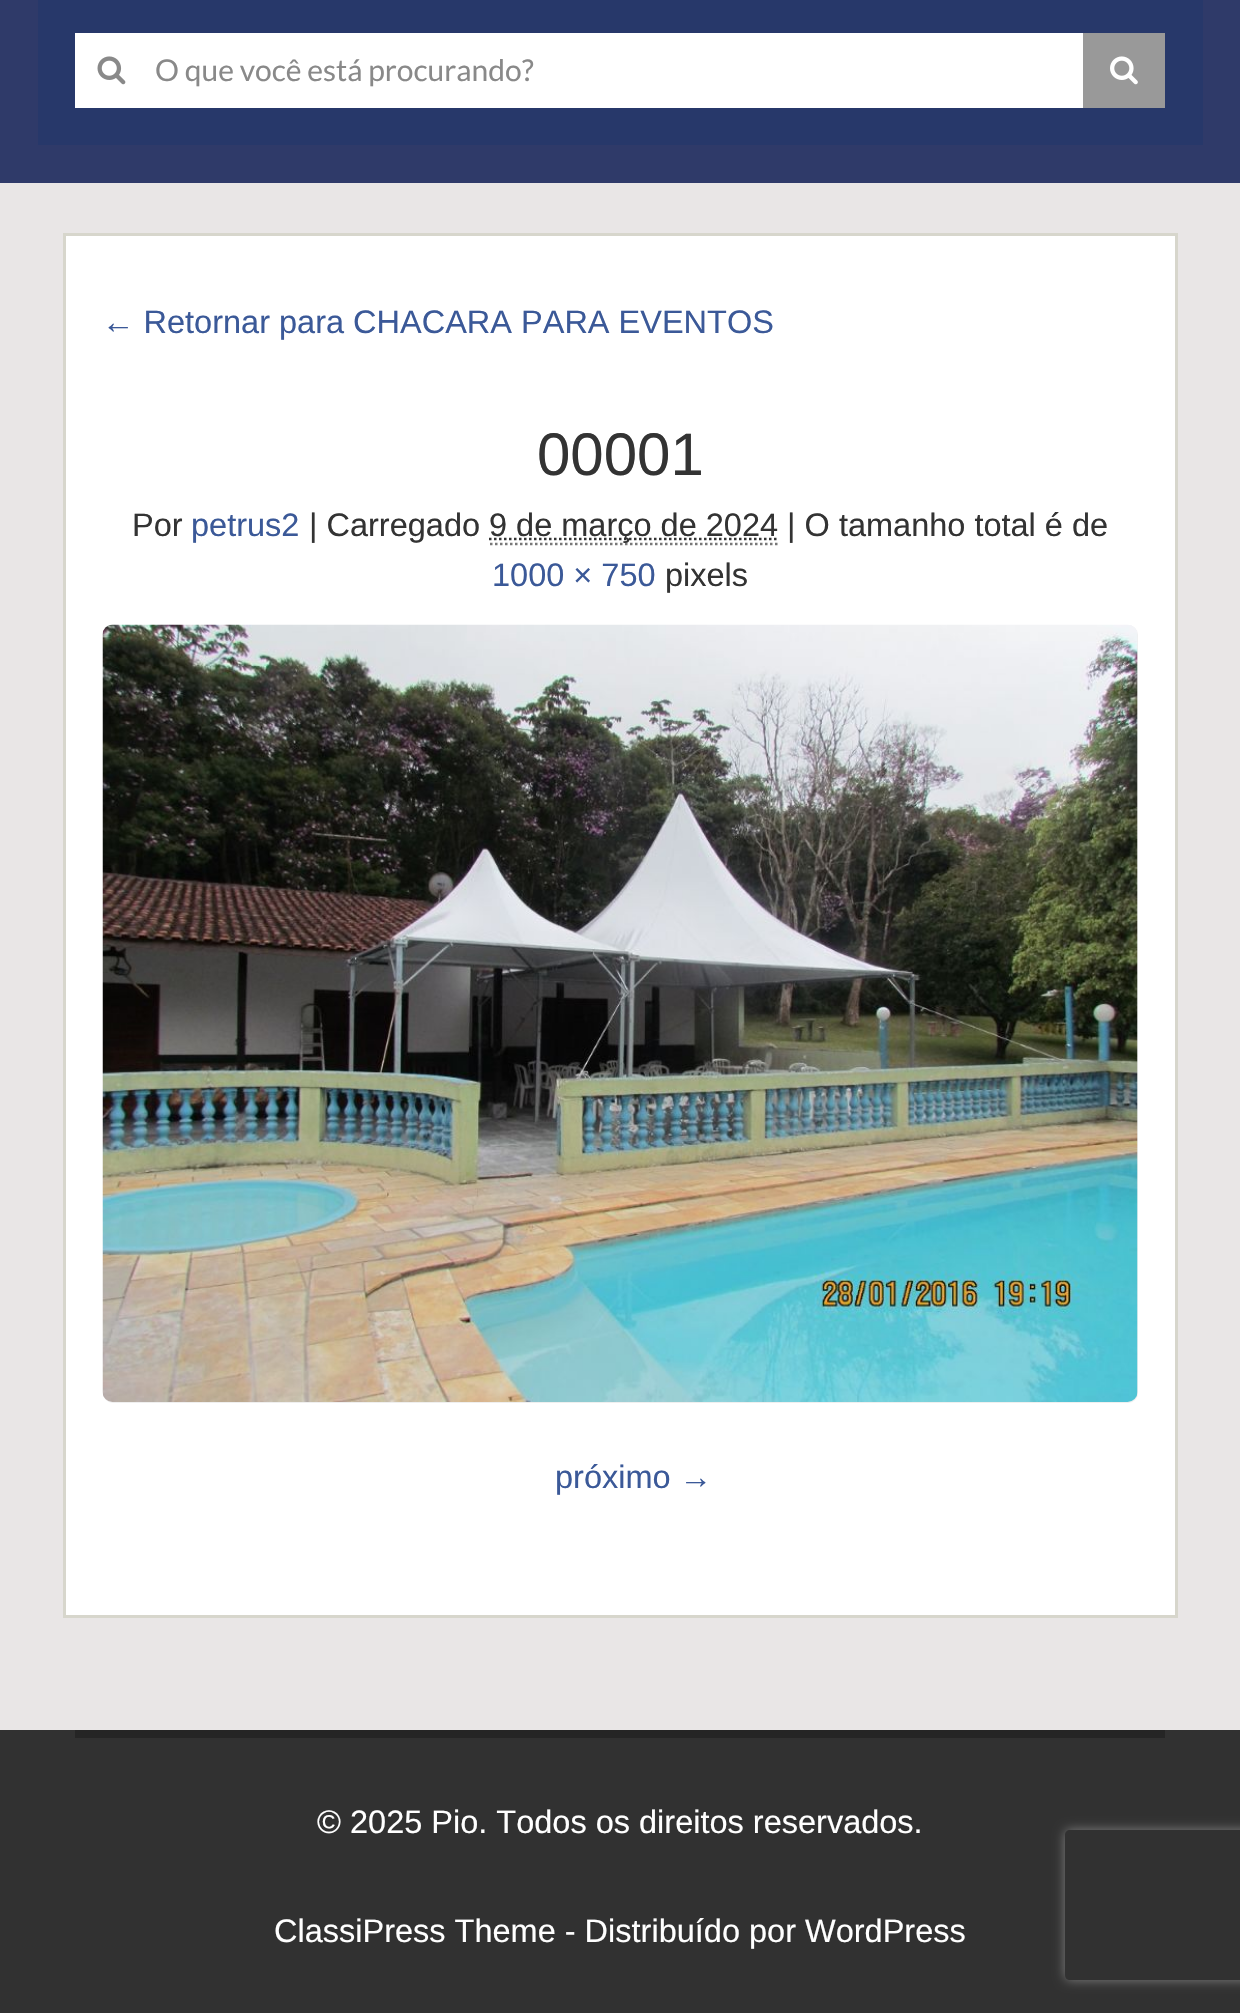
void draw(SkCanvas* c) {
SkPaint p;
p.setAntiAlias(true);
auto F=[&](const char* family, int weight, float size, bool italic = false){SkFontStyle style(weight, SkFontStyle::kNormal_Width,italic ? SkFontStyle::kItalic_Slant : SkFontStyle::kUpright_Slant);SkFont result(fontMgr->matchFamilyStyle(family, style), size);result.setSubpixel(true);return result;};
auto T=[&](const char* s, float x, float y, const SkFont& font){c->drawString(s, x, y, font, p);};
auto R=[&](float x, float y, float w, float h){c->drawRect(SkRect::MakeXYWH(x, y, w, h), p);};
auto Q=[&](float x, float y, float w, float h, float radius){c->drawRoundRect(SkRect::MakeXYWH(x, y, w, h), radius, radius, p);};
auto I=[&](const char* path, float x, float y, float w, float h){auto image = SkImages::DeferredFromEncodedData(SkData::MakeFromFileName(path));c->drawImageRect(image, SkRect::MakeXYWH(x, y, w, h), SkSamplingOptions());};
auto P=[&](const char* data, bool evenOdd = false){SkPath result = *SkParsePath::FromSVGString(data);if (evenOdd) result.setFillType(SkPathFillType::kEvenOdd);return result;};
c->clear(0xffe9e6e6);
p.setColor(0xff2f3a69);
R(0,0,1240,183);
p.setColor(0xff27386a);
R(38,0,1165,145);
p.setColor(0xffffffff);
R(75,33,1008,75);
I("1.png",97,56,29,29);
p.setColor(0xff999999);
R(1083,33,82,75);
I("2.png",1110,56,28,29);
auto f1 = F("Lato",400,30);
p.setColor(0xff898989);
T("O que você está procurando?",155,81,f1);
p.setColor(0xffffffff);
c->drawRect(SkRect::MakeXYWH(64.5,234.5,1112,1382),p);
p.setStroke(true);
p.setStrokeWidth(3);
p.setColor(0xffd7d6cc);
c->drawRect(SkRect::MakeXYWH(64.5,234.5,1112,1382),p);
auto f2 = F("Liberation Sans",400,32.5);
p.setStroke(false);
p.setColor(0xff3b5998);
T("← Retornar para CHACARA PARA EVENTOS",102,333,f2);
auto f3 = F("Liberation Sans",400,60);
p.setColor(0xff333333);
T("00001",537,475,f3);
T("Por",132,536,f2);
p.setColor(0xff3b5998);
T("petrus2",191,536,f2);
p.setColor(0xff333333);
T("| Carregado",309,536,f2);
p.setStroke(true);
p.setStrokeWidth(2.5);
p.setColor(0xff777777);
p.setPathEffect(SkDashPathEffect::Make({{2.5f,2.5f}}, 0));
c->drawPath(P("M490 544h287.5"),p);
p.setPathEffect(nullptr);
p.setColor(0xff333333);
p.setPathEffect(SkDashPathEffect::Make({{2.5f,2.5f}}, 0));
c->drawPath(P("M489 539h289"),p);
p.setPathEffect(nullptr);
p.setStroke(false);
T("9 de março de 2024 | O tamanho total é de",489,536,f2);
p.setColor(0xff3b5998);
T("1000 × 750",492,586,f2);
p.setColor(0xff333333);
T("pixels",665,586,f2);
p.setColor(0xffefefef);
Q(103,625,1035,778,10);
I("3.png",102,624,1036,778);
p.setColor(0xff3b5998);
T("próximo →",555,1488,f2);
p.setColor(0xff313131);
R(0,1730,1240,283);
p.setColor(0xff252525);
R(75,1730,1090,8);
p.setColor(0xffffffff);
T("© 2025 Pio. Todos os direitos reservados.",317,1833,f2);
T("ClassiPress Theme - Distribuído por WordPress",274,1942,f2);
c->save();
c->clipPath(P("M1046 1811h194v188h-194zm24 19h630c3 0 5 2 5 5v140c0 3-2 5-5 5h-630c-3 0-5-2-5-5v-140c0-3 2-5 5-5z",true),true);
p.setColor(0xff808080);
p.setMaskFilter(SkMaskFilter::MakeBlur(kNormal_SkBlurStyle, 6));
c->drawRoundRect(SkRect::MakeXYWH(1065,1830,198,150),5,5,p);
p.setMaskFilter(nullptr);
c->restore();
}
